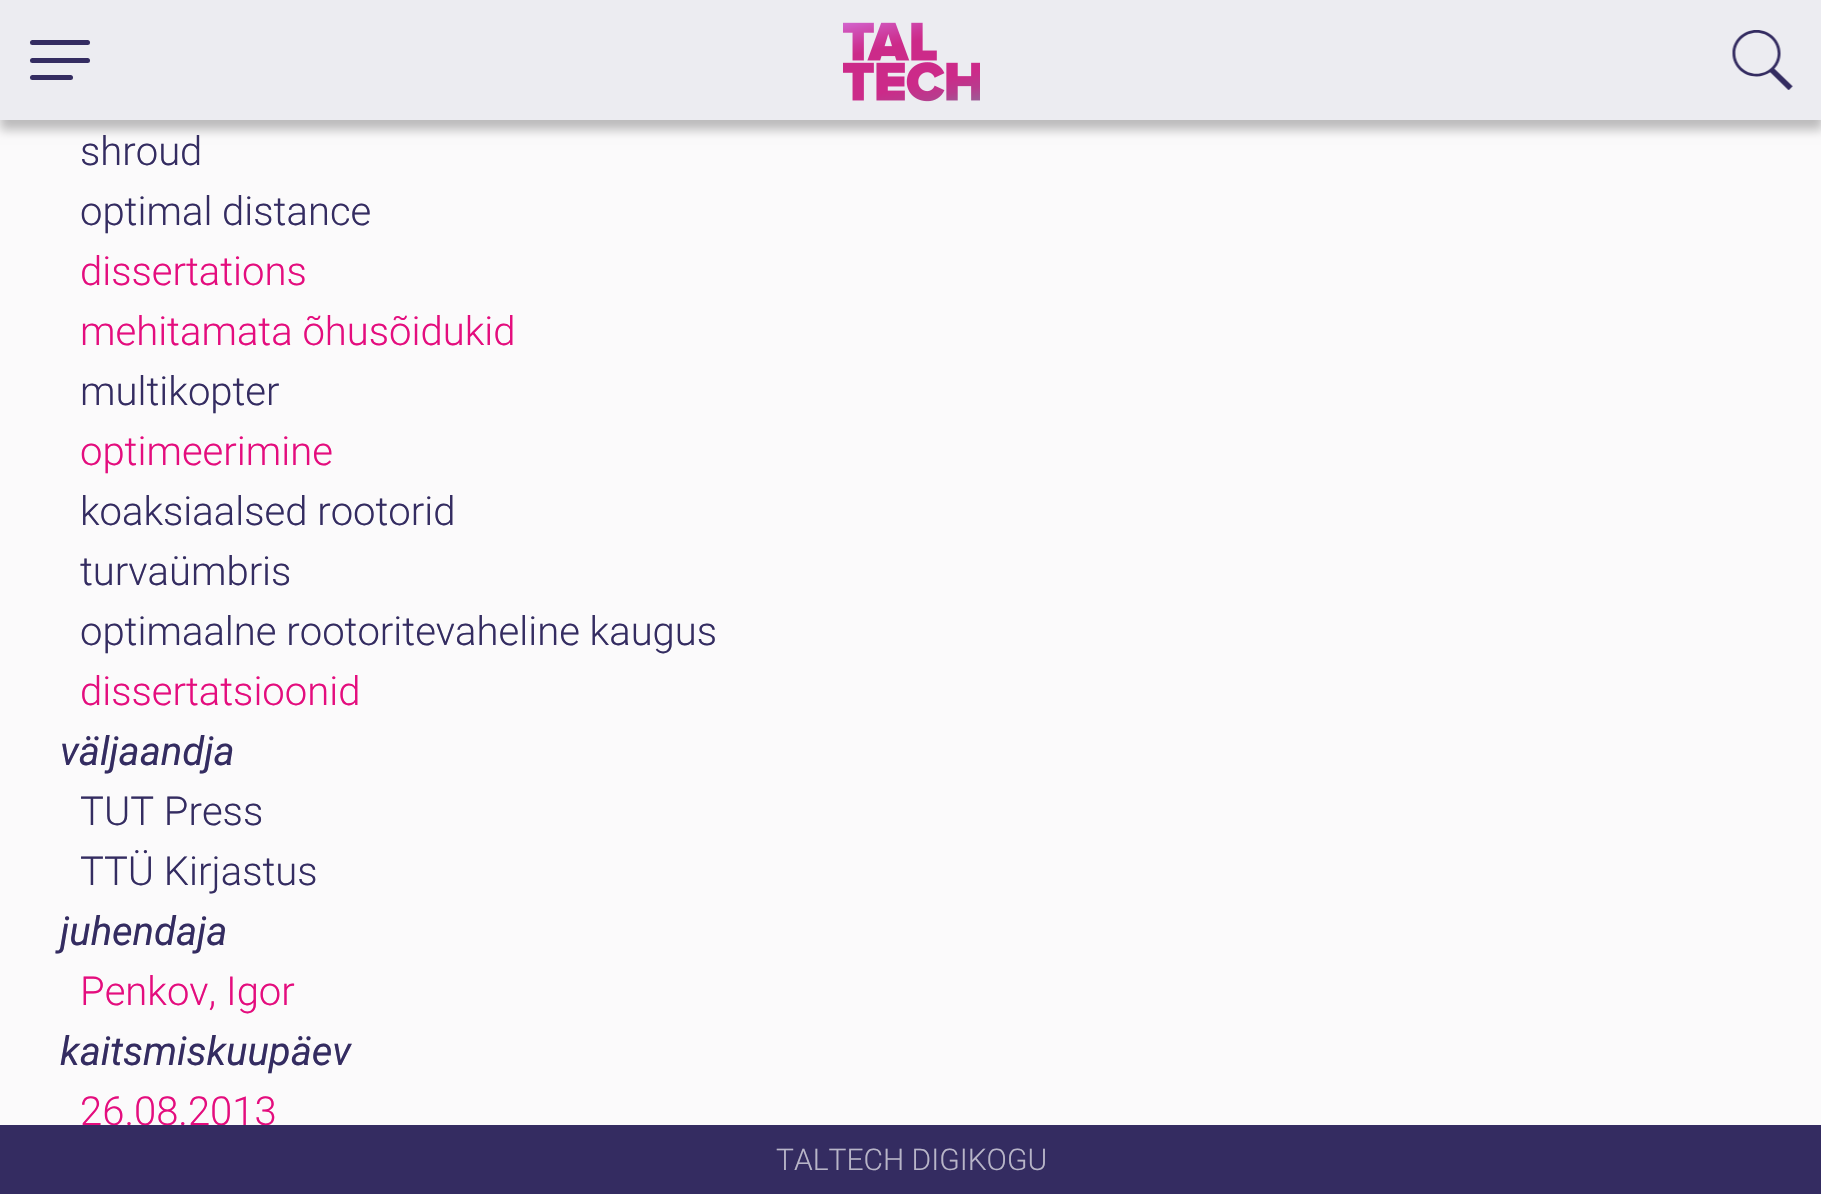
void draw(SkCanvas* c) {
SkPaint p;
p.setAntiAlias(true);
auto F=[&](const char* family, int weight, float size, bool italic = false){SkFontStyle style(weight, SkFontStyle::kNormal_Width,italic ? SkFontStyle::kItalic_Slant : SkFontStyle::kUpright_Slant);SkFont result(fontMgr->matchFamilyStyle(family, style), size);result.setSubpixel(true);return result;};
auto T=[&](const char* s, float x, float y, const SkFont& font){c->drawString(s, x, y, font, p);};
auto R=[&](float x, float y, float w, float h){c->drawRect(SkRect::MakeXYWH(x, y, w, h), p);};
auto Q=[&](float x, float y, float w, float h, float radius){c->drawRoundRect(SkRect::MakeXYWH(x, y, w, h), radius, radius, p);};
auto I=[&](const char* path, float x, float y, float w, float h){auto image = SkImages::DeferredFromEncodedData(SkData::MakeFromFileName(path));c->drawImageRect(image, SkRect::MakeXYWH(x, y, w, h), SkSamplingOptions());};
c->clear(0xfffbfafb);
p.setColor(0x40000000);
p.setMaskFilter(SkMaskFilter::MakeBlur(kNormal_SkBlurStyle, 5));
c->drawRect(SkRect::MakeXYWH(0,10,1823,120),p);
p.setMaskFilter(nullptr);
p.setColor(0xffececf1);
R(0,0,1821,120);
p.setColor(0xff342c61);
Q(30,58,60,5,2.5);
Q(30,40,60,5,2.5);
Q(30,75,43,5,2.5);
I("1.png",843,22,137,80);
I("2.png",1732,30,61,60);
auto f1 = F("Roboto",300,40);
T("shroud",80,165,f1);
T("optimal distance",80,225,f1);
p.setColor(0xffe40d7e);
T("dissertations",80,285,f1);
T("mehitamata õhusõidukid",80,345,f1);
p.setColor(0xff342c61);
T("multikopter",80,405,f1);
p.setColor(0xffe40d7e);
T("optimeerimine",80,465,f1);
p.setColor(0xff342c61);
T("koaksiaalsed rootorid",80,525,f1);
T("turvaümbris",80,585,f1);
T("optimaalne rootoritevaheline kaugus",80,645,f1);
p.setColor(0xffe40d7e);
T("dissertatsioonid",80,705,f1);
auto f2 = F("Roboto",400,40,true);
p.setColor(0xff342c61);
T("väljaandja",60,765,f2);
T("TUT Press",80,825,f1);
T("TTÜ Kirjastus",80,885,f1);
T("juhendaja",60,945,f2);
p.setColor(0xffe40d7e);
T("Penkov, Igor",80,1005,f1);
p.setColor(0xff342c61);
T("kaitsmiskuupäev",60,1065,f2);
p.setColor(0xffe40d7e);
T("26.08.2013",80,1125,f1);
p.setColor(0xff342c61);
R(0,1125,1821,69);
auto f3 = F("Roboto",300,30);
p.setColor(0xffb8b5c8);
T("TALTECH DIGIKOGU",776,1170,f3);
}
